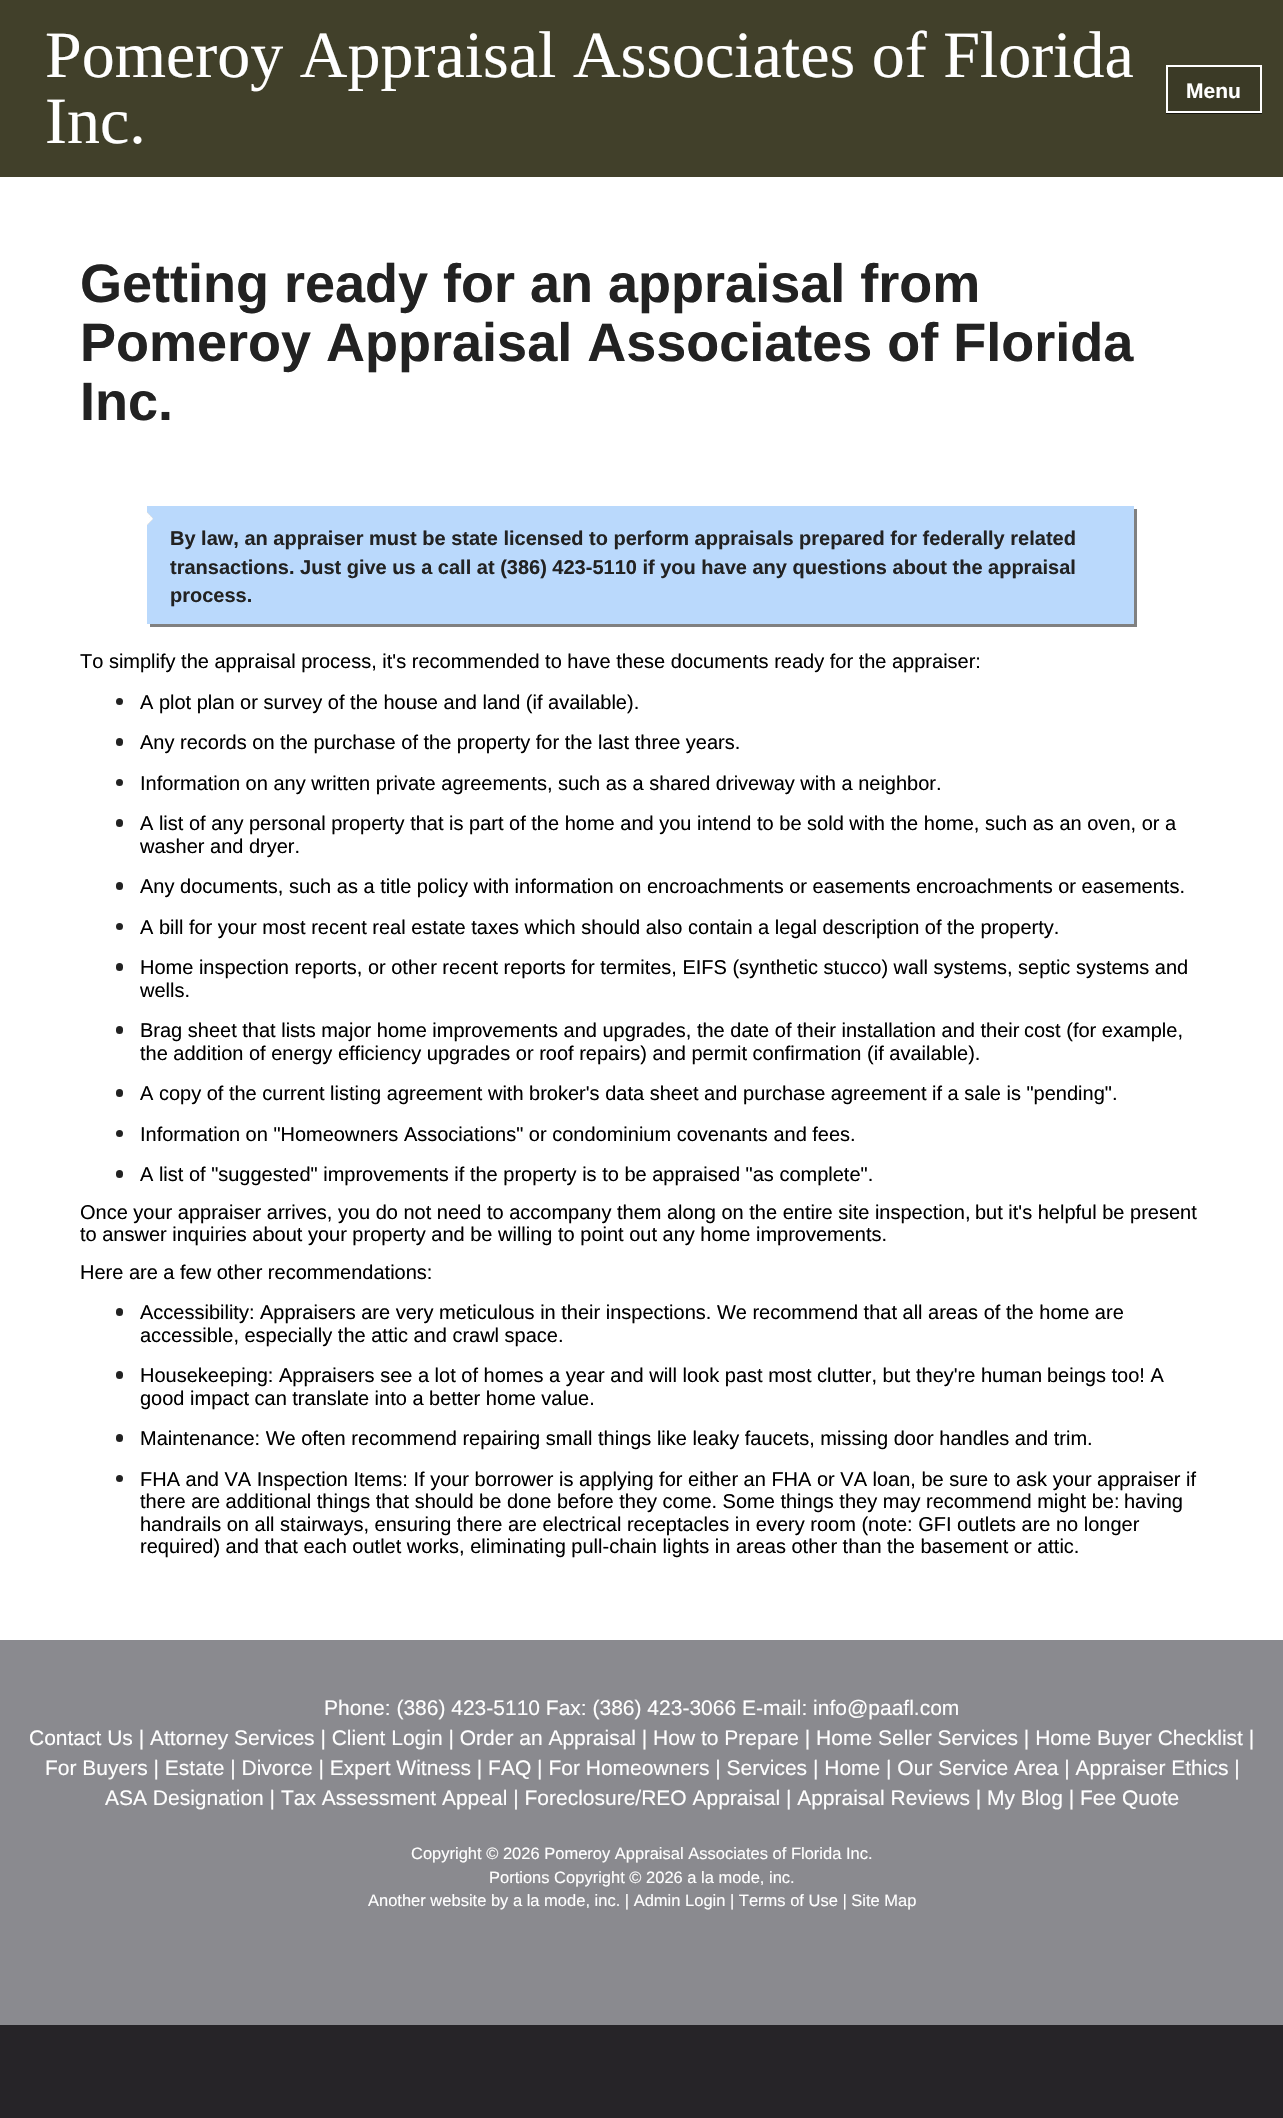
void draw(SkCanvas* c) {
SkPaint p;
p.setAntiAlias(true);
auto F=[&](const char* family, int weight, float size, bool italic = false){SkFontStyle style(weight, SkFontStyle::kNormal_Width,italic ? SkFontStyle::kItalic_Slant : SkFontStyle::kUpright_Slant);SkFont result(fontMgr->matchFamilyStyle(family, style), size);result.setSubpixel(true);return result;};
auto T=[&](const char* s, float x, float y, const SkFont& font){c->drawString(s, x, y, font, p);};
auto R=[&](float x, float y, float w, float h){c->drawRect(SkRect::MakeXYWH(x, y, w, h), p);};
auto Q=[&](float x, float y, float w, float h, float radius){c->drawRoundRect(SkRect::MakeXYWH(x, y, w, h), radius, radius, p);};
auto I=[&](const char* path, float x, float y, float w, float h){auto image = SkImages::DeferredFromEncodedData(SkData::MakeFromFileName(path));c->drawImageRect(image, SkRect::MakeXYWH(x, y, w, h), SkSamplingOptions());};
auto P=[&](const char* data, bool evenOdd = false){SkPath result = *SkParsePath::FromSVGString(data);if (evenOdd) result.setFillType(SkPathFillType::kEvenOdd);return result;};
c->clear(0xff262428);
p.setColor(0xff41402a);
R(0,0,1283,177);
auto f1 = F("Liberation Serif",400,66);
p.setColor(0xffffffff);
T("Pomeroy Appraisal Associates of Florida",45,77,f1);
T("Inc.",45,143,f1);
p.setColor(0xff15150e);
c->drawPath(P("M1166 112v2h96v-48v46z"),p);
p.setColor(0x1a000000);
c->drawRect(SkRect::MakeXYWH(1167,66,94,46),p);
p.setStroke(true);
p.setStrokeWidth(2);
p.setColor(0xffffffff);
c->drawRect(SkRect::MakeXYWH(1167,66,94,46),p);
auto f2 = F("Liberation Sans",700,21);
p.setStroke(false);
T("Menu",1186,98,f2);
R(0,177,1283,1463);
auto f3 = F("Liberation Sans",700,54);
p.setColor(0xff222222);
T("Getting ready for an appraisal from",80,302,f3);
T("Pomeroy Appraisal Associates of Florida",80,361,f3);
T("Inc.",80,420,f3);
p.setColor(0xffbad9fc);
R(147,506,987,118);
I("1.png",147,512,6,13);
p.setColor(0xff808080);
R(1134,509,3,115);
auto f4 = F("Liberation Sans",700,20);
p.setColor(0xff222222);
T("By law, an appraiser must be state licensed to perform appraisals prepared for federally related",170,545,f4);
T("transactions. Just give us a call at (386) 423-5110 if you have any questions about the appraisal",170,574,f4);
T("process.",170,602,f4);
p.setColor(0xff808080);
R(147,624,990,3);
p.setColor(0xffffffff);
R(147,624,3,3);
auto f5 = F("Liberation Sans",400,20);
p.setColor(0xff000000);
T("To simplify the appraisal process, it's recommended to have these documents ready for the appraiser:",80,668,f5);
p.setColor(0xff222222);
c->drawCircle(119.5,701.5,3.5,p);
p.setColor(0xff000000);
T("A plot plan or survey of the house and land (if available).",140,709,f5);
p.setColor(0xff222222);
Q(116,738,7,8,3.5);
p.setColor(0xff000000);
T("Any records on the purchase of the property for the last three years.",140,749,f5);
p.setColor(0xff222222);
c->drawCircle(119.5,782.5,3.5,p);
p.setColor(0xff000000);
T("Information on any written private agreements, such as a shared driveway with a neighbor.",140,790,f5);
p.setColor(0xff222222);
Q(116,819,7,8,3.5);
p.setColor(0xff000000);
T("A list of any personal property that is part of the home and you intend to be sold with the home, such as an oven, or a",140,830,f5);
T("washer and dryer.",140,853,f5);
p.setColor(0xff222222);
Q(116,882,7,8,3.5);
p.setColor(0xff000000);
T("Any documents, such as a title policy with information on encroachments or easements encroachments or easements.",140,893,f5);
p.setColor(0xff222222);
c->drawCircle(119.5,926.5,3.5,p);
p.setColor(0xff000000);
T("A bill for your most recent real estate taxes which should also contain a legal description of the property.",140,934,f5);
p.setColor(0xff222222);
Q(116,963,7,8,3.5);
p.setColor(0xff000000);
T("Home inspection reports, or other recent reports for termites, EIFS (synthetic stucco) wall systems, septic systems and",140,974,f5);
T("wells.",140,997,f5);
p.setColor(0xff222222);
Q(116,1026,7,8,3.5);
p.setColor(0xff000000);
T("Brag sheet that lists major home improvements and upgrades, the date of their installation and their",140,1037,f5);
T("cost (for example,",1024,1037,f5);
T("the addition of energy efficiency upgrades or roof repairs) and permit confirmation (if available).",140,1060,f5);
p.setColor(0xff222222);
Q(116,1089,7,8,3.5);
p.setColor(0xff000000);
T("A copy of the current listing agreement with broker's data sheet and purchase agreement if a sale is \"pending\".",140,1100,f5);
p.setColor(0xff222222);
c->drawCircle(119.5,1133.5,3.5,p);
p.setColor(0xff000000);
T("Information on \"Homeowners Associations\" or condominium covenants and fees.",140,1141,f5);
p.setColor(0xff222222);
Q(116,1170,7,8,3.5);
p.setColor(0xff000000);
T("A list of \"suggested\" improvements if the property is to be appraised \"as complete\".",140,1181,f5);
T("Once your appraiser arrives, you do not need to accompany them along on the entire site inspection,",80,1219,f5);
T("but it's helpful be present",975,1219,f5);
T("to answer inquiries about your property and be willing to point out any home improvements.",80,1241,f5);
T("Here are a few other recommendations:",80,1279,f5);
p.setColor(0xff222222);
Q(116,1308,7,8,3.5);
p.setColor(0xff000000);
T("Accessibility: Appraisers are very meticulous in their inspections. We recommend that all areas of the home are",140,1319,f5);
T("accessible, especially the attic and crawl space.",140,1342,f5);
p.setColor(0xff222222);
Q(116,1371,7,8,3.5);
p.setColor(0xff000000);
T("Housekeeping: Appraisers see a lot of homes a year and will look past most clutter, but they're human",140,1382,f5);
T("beings too! A",1047,1382,f5);
T("good impact can translate into a better home value.",140,1405,f5);
p.setColor(0xff222222);
Q(116,1434,7,8,3.5);
p.setColor(0xff000000);
T("Maintenance: We often recommend repairing small things like leaky faucets, missing door handles and trim.",140,1445,f5);
p.setColor(0xff222222);
c->drawCircle(119.5,1478.5,3.5,p);
p.setColor(0xff000000);
T("FHA and VA Inspection Items: If your borrower is applying for either an FHA or VA loan, be sure to ask your appraiser if",140,1486,f5);
T("there are additional things that should be done before they come. Some things they may recommend might be:",140,1508,f5);
T("having",1124,1508,f5);
T("handrails on all stairways, ensuring there are electrical receptacles in every room (note: GFI outlets are no longer",140,1531,f5);
T("required) and that each outlet works, eliminating pull-chain lights in areas other than the basement or attic.",140,1553,f5);
p.setColor(0xff8a8a8f);
R(0,1640,1283,385);
auto f6 = F("Liberation Sans",400,21);
p.setColor(0xffffffff);
T("Phone: (386) 423-5110 Fax: (386) 423-3066 E-mail: info@paafl.com",324,1715,f6);
T("Contact Us | Attorney Services | Client Login | Order an Appraisal | How to Prepare | Home Seller Services | Home Buyer Checklist |",29,1745,f6);
T("For Buyers | Estate | Divorce | Expert Witness | FAQ | For Homeowners | Services | Home | Our Service Area | Appraiser Ethics |",45,1775,f6);
T("ASA Designation | Tax Assessment Appeal | Foreclosure/REO Appraisal | Appraisal Reviews | My Blog | Fee Quote",105,1805,f6);
auto f7 = F("Liberation Sans",400,16.5);
T("Copyright © 2026 Pomeroy Appraisal Associates of Florida Inc.",411,1859,f7);
T("Portions Copyright © 2026 a la mode, inc.",489,1883,f7);
T("Another website by a la mode, inc. | Admin Login | Terms of Use | Site Map",368,1906,f7);
}
